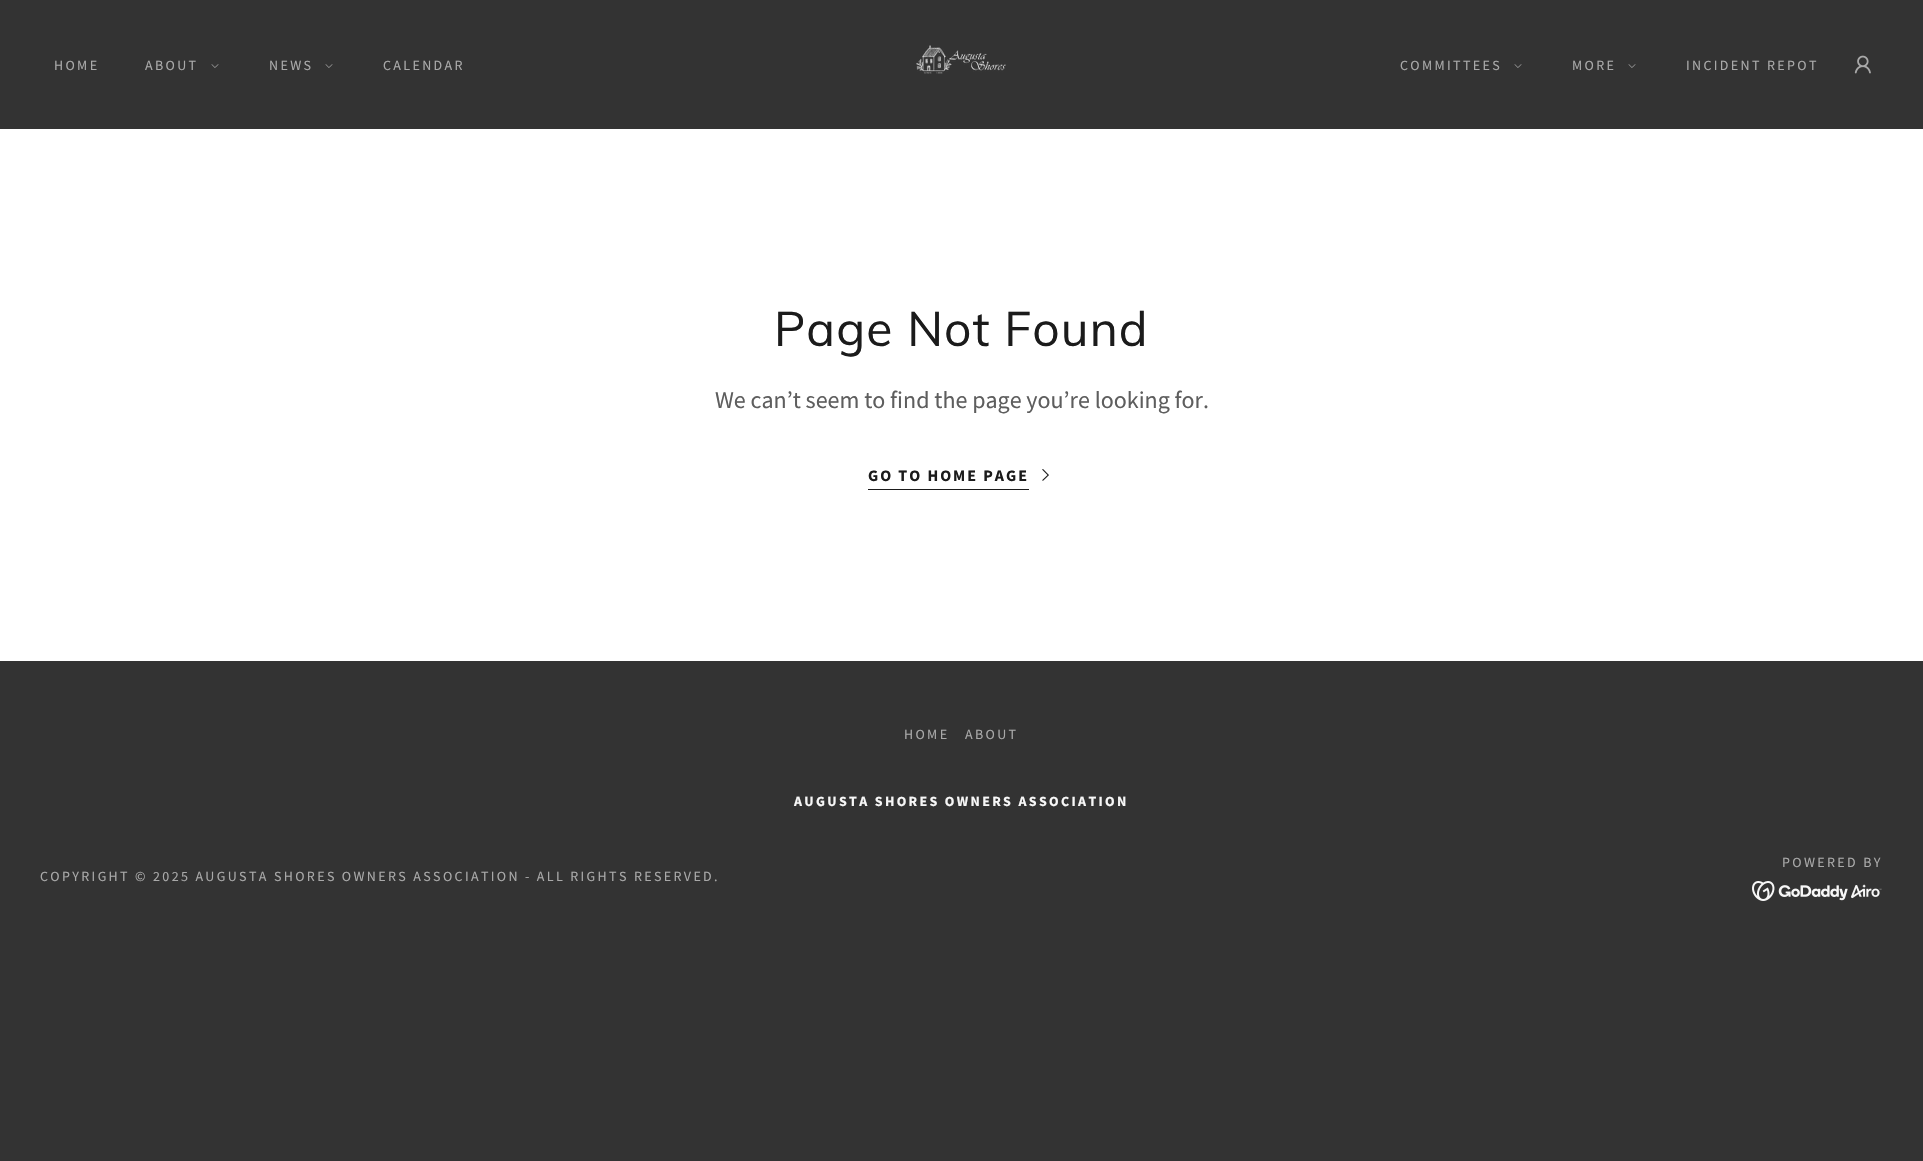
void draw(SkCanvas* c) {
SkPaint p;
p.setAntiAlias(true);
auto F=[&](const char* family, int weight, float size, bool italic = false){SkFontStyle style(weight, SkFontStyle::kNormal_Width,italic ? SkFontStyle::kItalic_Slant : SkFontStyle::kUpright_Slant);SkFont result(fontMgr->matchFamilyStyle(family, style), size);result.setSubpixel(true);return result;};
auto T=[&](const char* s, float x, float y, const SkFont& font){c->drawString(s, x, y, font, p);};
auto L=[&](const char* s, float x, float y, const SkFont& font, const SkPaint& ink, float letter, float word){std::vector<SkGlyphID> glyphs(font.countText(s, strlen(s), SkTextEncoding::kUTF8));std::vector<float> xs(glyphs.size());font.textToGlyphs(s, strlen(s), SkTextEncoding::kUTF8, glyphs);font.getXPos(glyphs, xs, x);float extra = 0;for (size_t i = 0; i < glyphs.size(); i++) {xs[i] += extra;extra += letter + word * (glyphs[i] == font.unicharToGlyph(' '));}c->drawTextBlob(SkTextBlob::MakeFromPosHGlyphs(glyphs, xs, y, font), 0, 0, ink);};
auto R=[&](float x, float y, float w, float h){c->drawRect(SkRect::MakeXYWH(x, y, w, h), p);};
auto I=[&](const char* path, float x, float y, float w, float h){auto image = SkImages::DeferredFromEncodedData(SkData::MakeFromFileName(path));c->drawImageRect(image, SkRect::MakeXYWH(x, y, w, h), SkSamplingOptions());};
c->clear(0xff333333);
auto f1 = F("Source Sans Pro",400,14);
p.setColor(0xffa9a9a9);
L("HOME",54,70,f1,p,2.35,0);
L("ABOUT",145,70,f1,p,2.35,0);
I("1.png",211,64,8,4);
L("NEWS",269,70,f1,p,2.35,0);
I("1.png",325,64,8,4);
L("CALENDAR",383,70,f1,p,2.35,0);
I("2.png",916,45,90,29);
L("COMMITTEES",1400,70,f1,p,2.35,0);
I("1.png",1514,64,8,4);
L("MORE",1572,70,f1,p,2.35,0);
I("1.png",1628,64,8,4);
L("INCIDENT REPOT",1686,70,f1,p,2.35,0);
I("3.png",1854,55,17,19);
p.setColor(0xffffffff);
R(0,129,1923,532);
auto f2 = F("Muli",400,48);
p.setColor(0xff1b1b1b);
L("Page Not Found",774,346,f2,p,1.1,0);
auto f3 = F("Source Sans Pro",400,24);
p.setColor(0xff5e5e5e);
T("We can’t seem to find the page you’re looking for.",715,408,f3);
p.setColor(0xff1b1b1b);
R(868,489,161,1);
auto f4 = F("Source Sans Pro",700,16);
L("GO TO HOME PAGE",868,481,f4,p,2,0);
I("4.png",1042,469,7,12);
p.setColor(0xffa9a9a9);
L("HOME",904,739,f1,p,2.35,0);
L("ABOUT",965,739,f1,p,2.35,0);
auto f5 = F("Source Sans Pro",700,14);
p.setColor(0xfff7f7f7);
L("AUGUSTA SHORES OWNERS ASSOCIATION",794,806,f5,p,2.35,0);
p.setColor(0xffa9a9a9);
L("POWERED BY",1782,867,f1,p,2.35,0);
I("5.png",1752,881,130,20);
L("COPYRIGHT © 2025 AUGUSTA SHORES OWNERS ASSOCIATION - ALL RIGHTS RESERVED.",40,881,f1,p,2.35,0);
}
